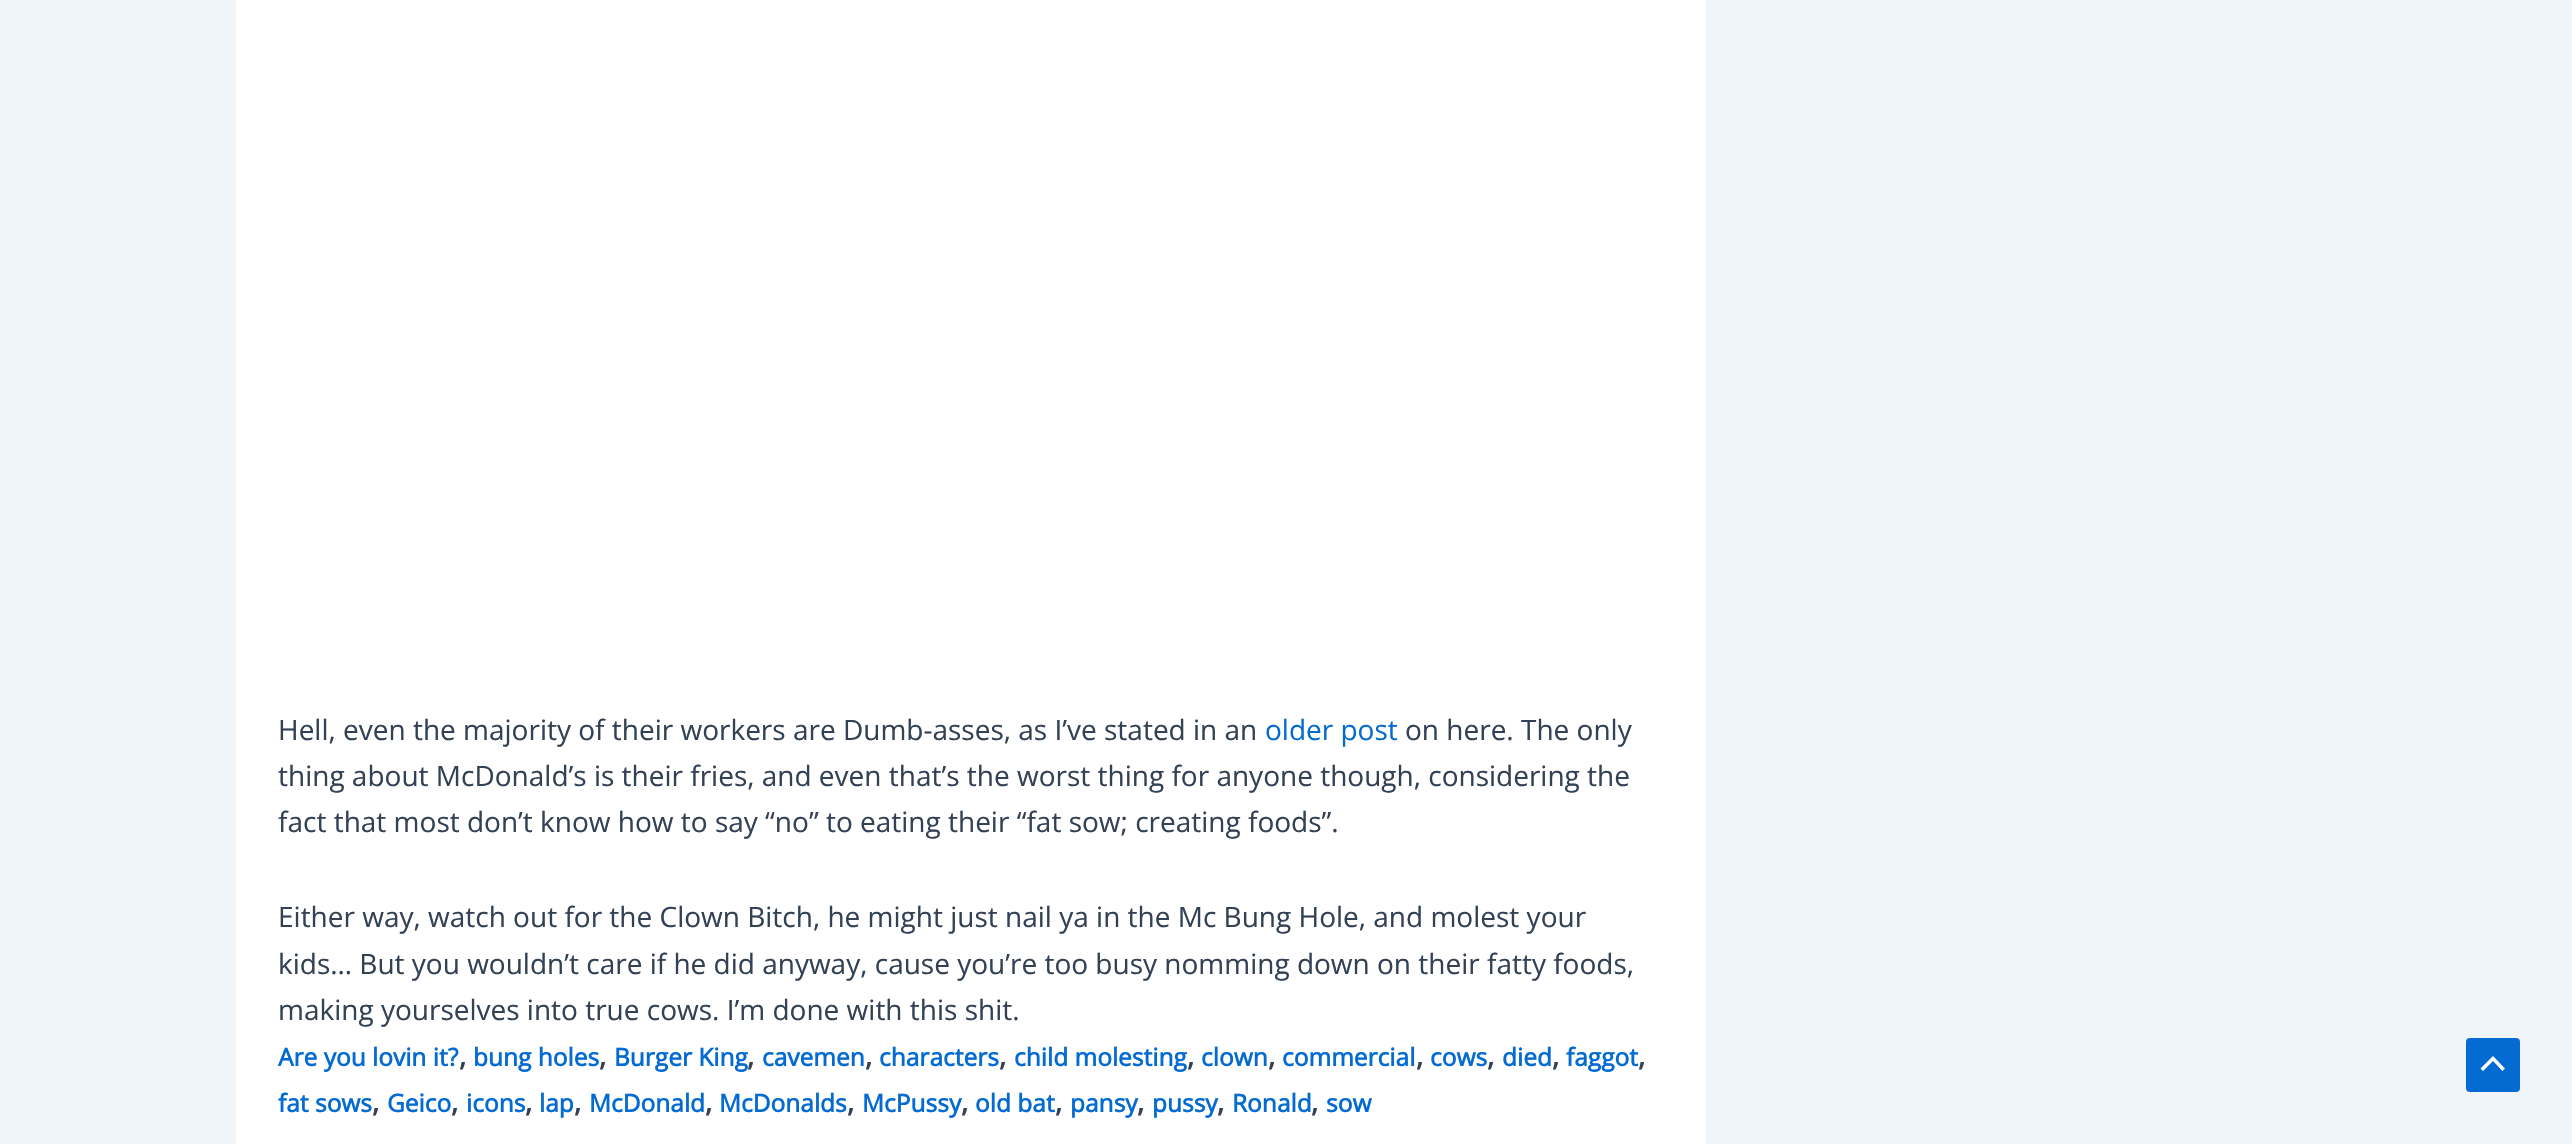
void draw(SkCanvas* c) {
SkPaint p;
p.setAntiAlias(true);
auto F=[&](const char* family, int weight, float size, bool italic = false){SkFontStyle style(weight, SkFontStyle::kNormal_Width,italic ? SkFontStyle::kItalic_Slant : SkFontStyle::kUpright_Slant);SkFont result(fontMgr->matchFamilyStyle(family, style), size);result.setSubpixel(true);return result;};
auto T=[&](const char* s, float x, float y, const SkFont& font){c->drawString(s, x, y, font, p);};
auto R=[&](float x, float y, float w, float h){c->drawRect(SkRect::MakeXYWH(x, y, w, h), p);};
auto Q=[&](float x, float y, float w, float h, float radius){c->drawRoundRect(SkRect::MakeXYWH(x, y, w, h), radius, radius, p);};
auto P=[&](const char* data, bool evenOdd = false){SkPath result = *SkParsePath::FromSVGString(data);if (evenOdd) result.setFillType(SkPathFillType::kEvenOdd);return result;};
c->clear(0xfff0f5fa);
p.setColor(0xffffffff);
R(236,0,1470,1144);
auto f1 = F("Open Sans",400,28);
p.setColor(0xff334155);
T("Hell, even the majority of their workers are Dumb-asses, as I’ve stated in an",278,740,f1);
p.setColor(0xff046bd2);
T("older post",1265,740,f1);
p.setColor(0xff334155);
T("on here. The only",1405,740,f1);
T("thing about McDonald’s is their fries, and even that’s the worst thing for anyone though, considering the",278,786,f1);
T("fact that most don’t know how to say “no” to eating their “fat sow; creating foods”.",278,832,f1);
T("Either way, watch out for the Clown Bitch, he might just nail ya in the Mc Bung Hole, and molest your",278,927,f1);
T("kids… But you wouldn’t care if he did anyway, cause you’re too busy nomming down on their fatty foods,",278,974,f1);
T("making yourselves into true cows. I’m done with this shit.",278,1020,f1);
auto f2 = F("Open Sans",700,24.5);
p.setColor(0xff046bd2);
T("Are you lovin it?",278,1066,f2);
auto f3 = F("Open Sans",700,28);
p.setColor(0xff334155);
T(",",459,1066,f3);
p.setColor(0xff046bd2);
T("bung holes",473,1066,f2);
p.setColor(0xff334155);
T(",",599,1066,f3);
p.setColor(0xff046bd2);
T("Burger King",614,1066,f2);
p.setColor(0xff334155);
T(",",747,1066,f3);
p.setColor(0xff046bd2);
T("cavemen",762,1066,f2);
p.setColor(0xff334155);
T(",",865,1066,f3);
p.setColor(0xff046bd2);
T("characters",879,1066,f2);
p.setColor(0xff334155);
T(",",999,1066,f3);
p.setColor(0xff046bd2);
T("child molesting",1014,1066,f2);
p.setColor(0xff334155);
T(",",1187,1066,f3);
p.setColor(0xff046bd2);
T("clown",1201,1066,f2);
p.setColor(0xff334155);
T(",",1268,1066,f3);
p.setColor(0xff046bd2);
T("commercial",1282,1066,f2);
p.setColor(0xff334155);
T(",",1416,1066,f3);
p.setColor(0xff046bd2);
T("cows",1430,1066,f2);
p.setColor(0xff334155);
T(",",1487,1066,f3);
p.setColor(0xff046bd2);
T("died",1502,1066,f2);
p.setColor(0xff334155);
T(",",1552,1066,f3);
p.setColor(0xff046bd2);
T("faggot",1566,1066,f2);
p.setColor(0xff334155);
T(",",1638,1066,f3);
p.setColor(0xff046bd2);
T("fat sows",278,1112,f2);
p.setColor(0xff334155);
T(",",372,1112,f3);
p.setColor(0xff046bd2);
T("Geico",387,1112,f2);
p.setColor(0xff334155);
T(",",451,1112,f3);
p.setColor(0xff046bd2);
T("icons",466,1112,f2);
p.setColor(0xff334155);
T(",",525,1112,f3);
p.setColor(0xff046bd2);
T("lap",539,1112,f2);
p.setColor(0xff334155);
T(",",574,1112,f3);
p.setColor(0xff046bd2);
T("McDonald",589,1112,f2);
p.setColor(0xff334155);
T(",",705,1112,f3);
p.setColor(0xff046bd2);
T("McDonalds",719,1112,f2);
p.setColor(0xff334155);
T(",",847,1112,f3);
p.setColor(0xff046bd2);
T("McPussy",862,1112,f2);
p.setColor(0xff334155);
T(",",961,1112,f3);
p.setColor(0xff046bd2);
T("old bat",975,1112,f2);
p.setColor(0xff334155);
T(",",1055,1112,f3);
p.setColor(0xff046bd2);
T("pansy",1070,1112,f2);
p.setColor(0xff334155);
T(",",1137,1112,f3);
p.setColor(0xff046bd2);
T("pussy",1152,1112,f2);
p.setColor(0xff334155);
T(",",1217,1112,f3);
p.setColor(0xff046bd2);
T("Ronald",1232,1112,f2);
p.setColor(0xff334155);
T(",",1311,1112,f3);
p.setColor(0xff046bd2);
T("sow",1326,1112,f2);
Q(2466,1038,54,54,4);
p.setColor(0xffffffff);
c->drawPath(P("M2505 1068.5l-12-12.5l-12.5 12.5l2.5 2.5l10-10l9.5 10z"),p);
}
